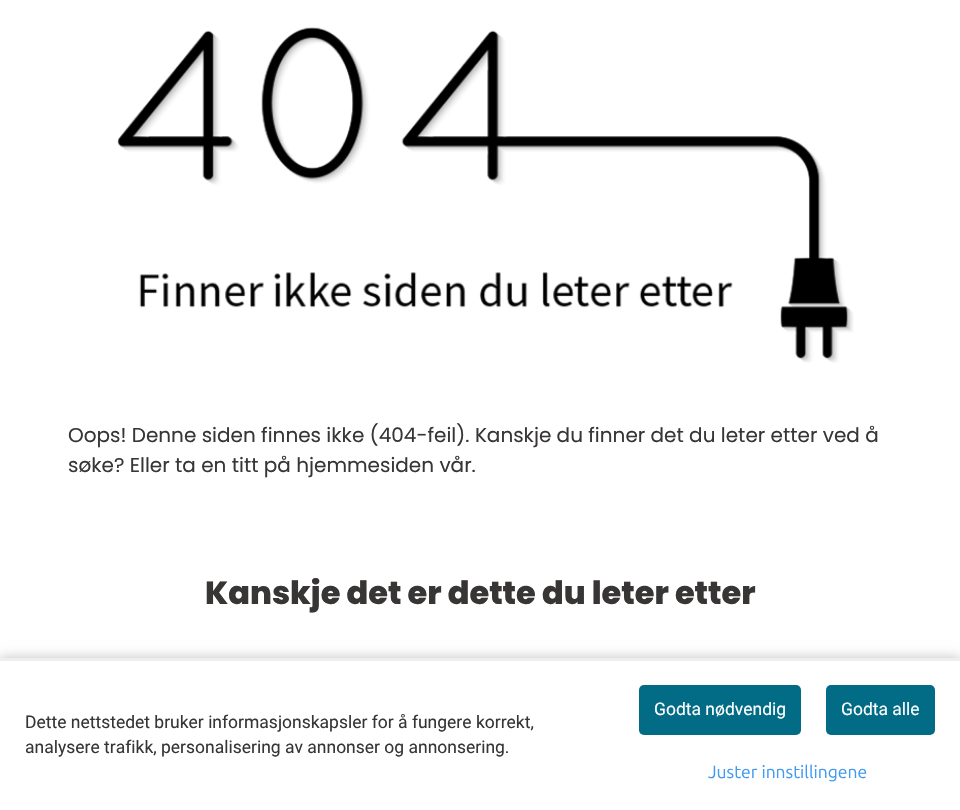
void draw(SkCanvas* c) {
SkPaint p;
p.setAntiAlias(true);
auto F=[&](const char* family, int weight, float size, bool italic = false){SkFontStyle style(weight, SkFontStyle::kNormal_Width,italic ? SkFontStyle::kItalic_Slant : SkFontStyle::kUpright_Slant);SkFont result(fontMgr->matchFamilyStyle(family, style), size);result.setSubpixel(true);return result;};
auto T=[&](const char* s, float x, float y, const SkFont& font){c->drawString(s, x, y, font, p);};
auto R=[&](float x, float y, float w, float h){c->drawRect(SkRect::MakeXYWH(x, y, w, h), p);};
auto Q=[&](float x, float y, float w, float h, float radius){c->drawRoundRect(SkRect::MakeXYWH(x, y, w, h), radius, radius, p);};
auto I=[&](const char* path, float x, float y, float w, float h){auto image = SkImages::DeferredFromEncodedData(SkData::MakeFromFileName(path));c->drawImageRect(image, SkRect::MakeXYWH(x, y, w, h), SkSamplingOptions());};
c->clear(0xffffffff);
I("1.png",117,27,737,336);
auto f1 = F("Poppins",400,20);
p.setColor(0xff383535);
T("Oops! Denne siden finnes ikke (404-feil). Kanskje du finner det du leter etter ved å",68,442,f1);
T("søke? Eller ta en titt på hjemmesiden vår.",68,472,f1);
auto f2 = F("Poppins",800,32);
T("Kanskje det er dette du leter etter",205,604,f2);
p.setColor(0x40000000);
p.setMaskFilter(SkMaskFilter::MakeBlur(kNormal_SkBlurStyle, 6));
c->drawRect(SkRect::MakeXYWH(0,658,960,152),p);
p.setMaskFilter(nullptr);
p.setColor(0xffffffff);
R(0,661,960,149);
p.setColor(0xffeeeeee);
R(0,658,960,3);
auto f3 = F("Roboto",400,17.5);
p.setColor(0xff383535);
T("Dette nettstedet bruker informasjonskapsler for å fungere korrekt,",25,728,f3);
T("analysere trafikk, personalisering av annonser og annonsering.",25,753,f3);
p.setColor(0xff026b85);
Q(639,685,162,50,5);
p.setColor(0xffffffff);
T("Godta nødvendig",654,715,f3);
p.setColor(0xff026b85);
Q(826,685,109,50,5);
p.setColor(0xffffffff);
T("Godta alle",841,715,f3);
auto f4 = F("Ubuntu",400,17.5);
p.setColor(0xff409aef);
T("Juster innstillingene",708,778,f4);
}
